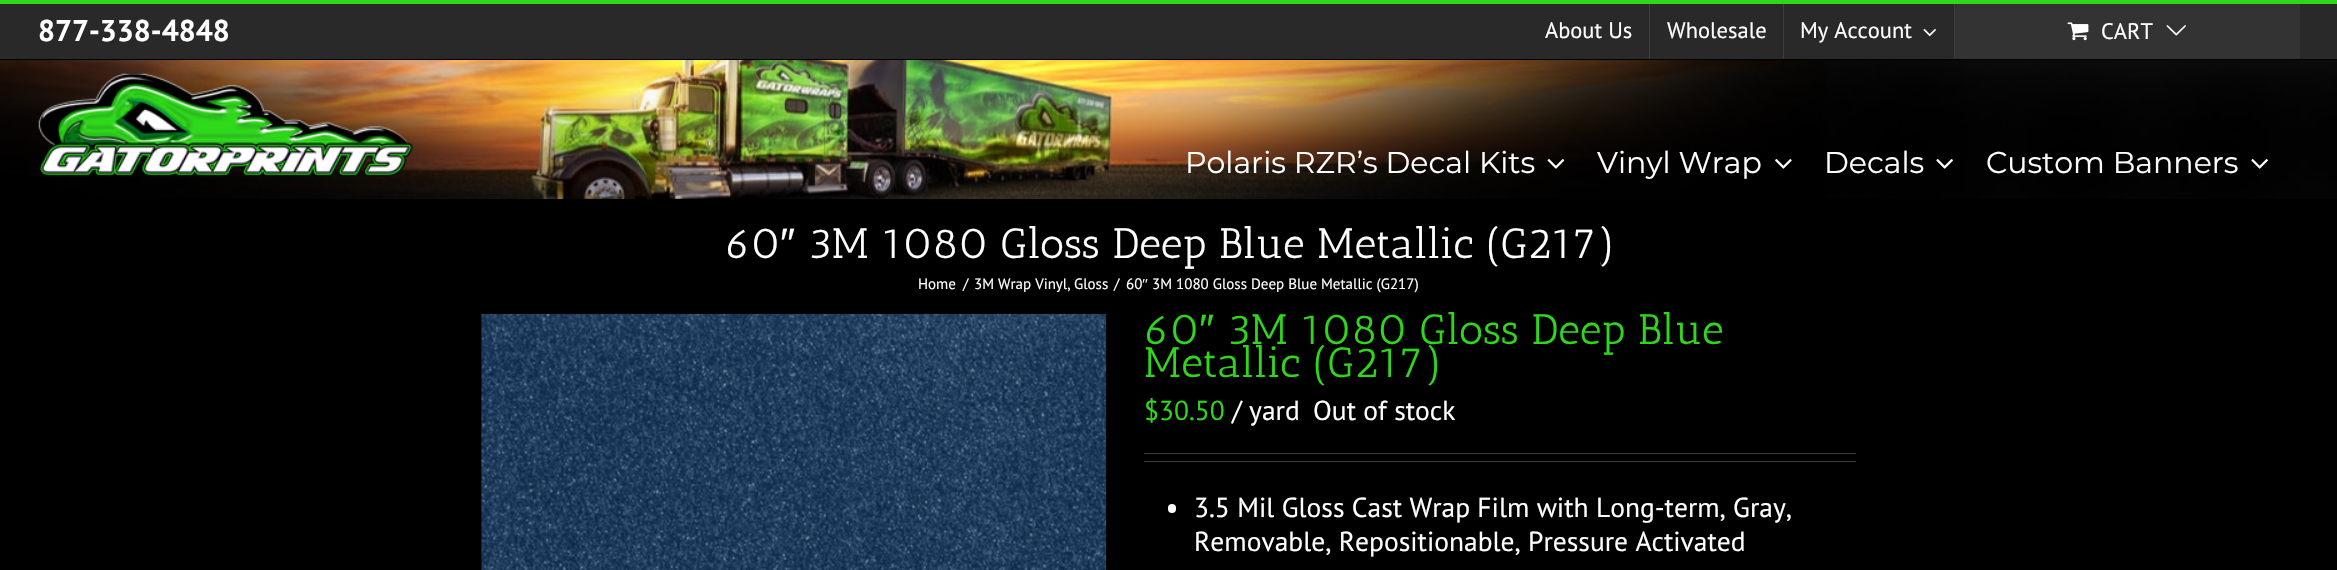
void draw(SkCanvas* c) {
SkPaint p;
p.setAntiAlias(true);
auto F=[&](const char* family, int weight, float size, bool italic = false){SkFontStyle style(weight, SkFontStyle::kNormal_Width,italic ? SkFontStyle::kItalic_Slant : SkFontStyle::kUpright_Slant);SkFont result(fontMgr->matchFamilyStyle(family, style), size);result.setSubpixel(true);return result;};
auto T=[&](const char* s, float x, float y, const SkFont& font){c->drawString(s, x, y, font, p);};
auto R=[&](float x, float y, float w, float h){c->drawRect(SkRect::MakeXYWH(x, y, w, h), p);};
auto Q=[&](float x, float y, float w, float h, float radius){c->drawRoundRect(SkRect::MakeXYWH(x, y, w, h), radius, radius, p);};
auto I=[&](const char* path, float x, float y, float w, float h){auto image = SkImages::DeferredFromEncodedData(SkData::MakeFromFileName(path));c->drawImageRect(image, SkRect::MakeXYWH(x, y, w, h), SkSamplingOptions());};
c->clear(0xff000000);
p.setColor(0xff29292a);
R(0,4,2337,55);
p.setColor(0xff2fd71b);
R(0,0,2337,4);
auto f1 = F("PT Sans",700,30);
p.setColor(0xffffffff);
T("877-338-4848",38,41,f1);
auto f2 = F("PT Sans",400,22.5);
T("About Us",1545,38,f2);
p.setColor(0xff3e3e3e);
R(1649,4,1,55);
p.setColor(0xffffffff);
T("Wholesale",1667,38,f2);
p.setColor(0xff3e3e3e);
R(1783,4,1,55);
p.setColor(0xffffffff);
T("My Account",1800,38,f2);
I("1.png",1923,29,13,8);
p.setColor(0xff3e3e3e);
R(1954,4,1,55);
p.setColor(0xff333333);
R(1955,4,345,55);
I("2.png",2067,22,22,19);
p.setColor(0xffffffff);
T("CART",2101,39,f2);
I("3.png",2166,25,20,11);
I("4.png",0,60,2337,139);
I("5.png",38,73,375,104);
auto f3 = F("Montserrat",100,30);
T("Polaris RZR’s Decal Kits",1185,173,f3);
I("6.png",1547,159,18,10);
T("Vinyl Wrap",1597,173,f3);
I("7.png",1775,159,17,10);
T("Decals",1824,173,f3);
I("8.png",1936,159,17,10);
T("Custom Banners",1986,173,f3);
I("9.png",2251,159,17,10);
auto f4 = F("Antic Slab",400,42.5);
T("60",725,258,f4);
auto f5 = F("Liberation Sans",400,42.5);
T("″",780,258,f5);
T("3M 1080 Gloss Deep Blue Metallic (G217)",808,258,f4);
auto f6 = F("PT Sans",400,15);
T("Home",918,289,f6);
T("/",963,289,f6);
T("3M Wrap Vinyl,",974,289,f6);
T("Gloss",1074,289,f6);
T("/",1114,289,f6);
T("60",1126,289,f6);
auto f7 = F("Liberation Serif",400,15);
T("″",1142,289,f7);
T("3M 1080 Gloss Deep Blue Metallic (G217)",1152,289,f6);
I("10.png",481,313,626,257);
p.setColor(0xff2fd71b);
T("60",1144,344,f4);
T("″",1199,344,f5);
T("3M 1080 Gloss Deep Blue",1227,344,f4);
T("Metallic (G217)",1144,377,f4);
auto f8 = F("PT Sans",400,27.5);
T("$30.50",1144,420,f8);
p.setColor(0xffffffff);
T("/ yard",1232,420,f8);
T("Out of stock",1313,420,f8);
p.setColor(0xff3e3e3e);
R(1144,453,712,1);
R(1144,461,712,1);
p.setColor(0xffffffff);
Q(1168,504,8,9,4);
T("3.5 Mil Gloss Cast Wrap Film with Long-term, Gray,",1194,517,f8);
T("Removable, Repositionable, Pressure Activated",1194,551,f8);
}
